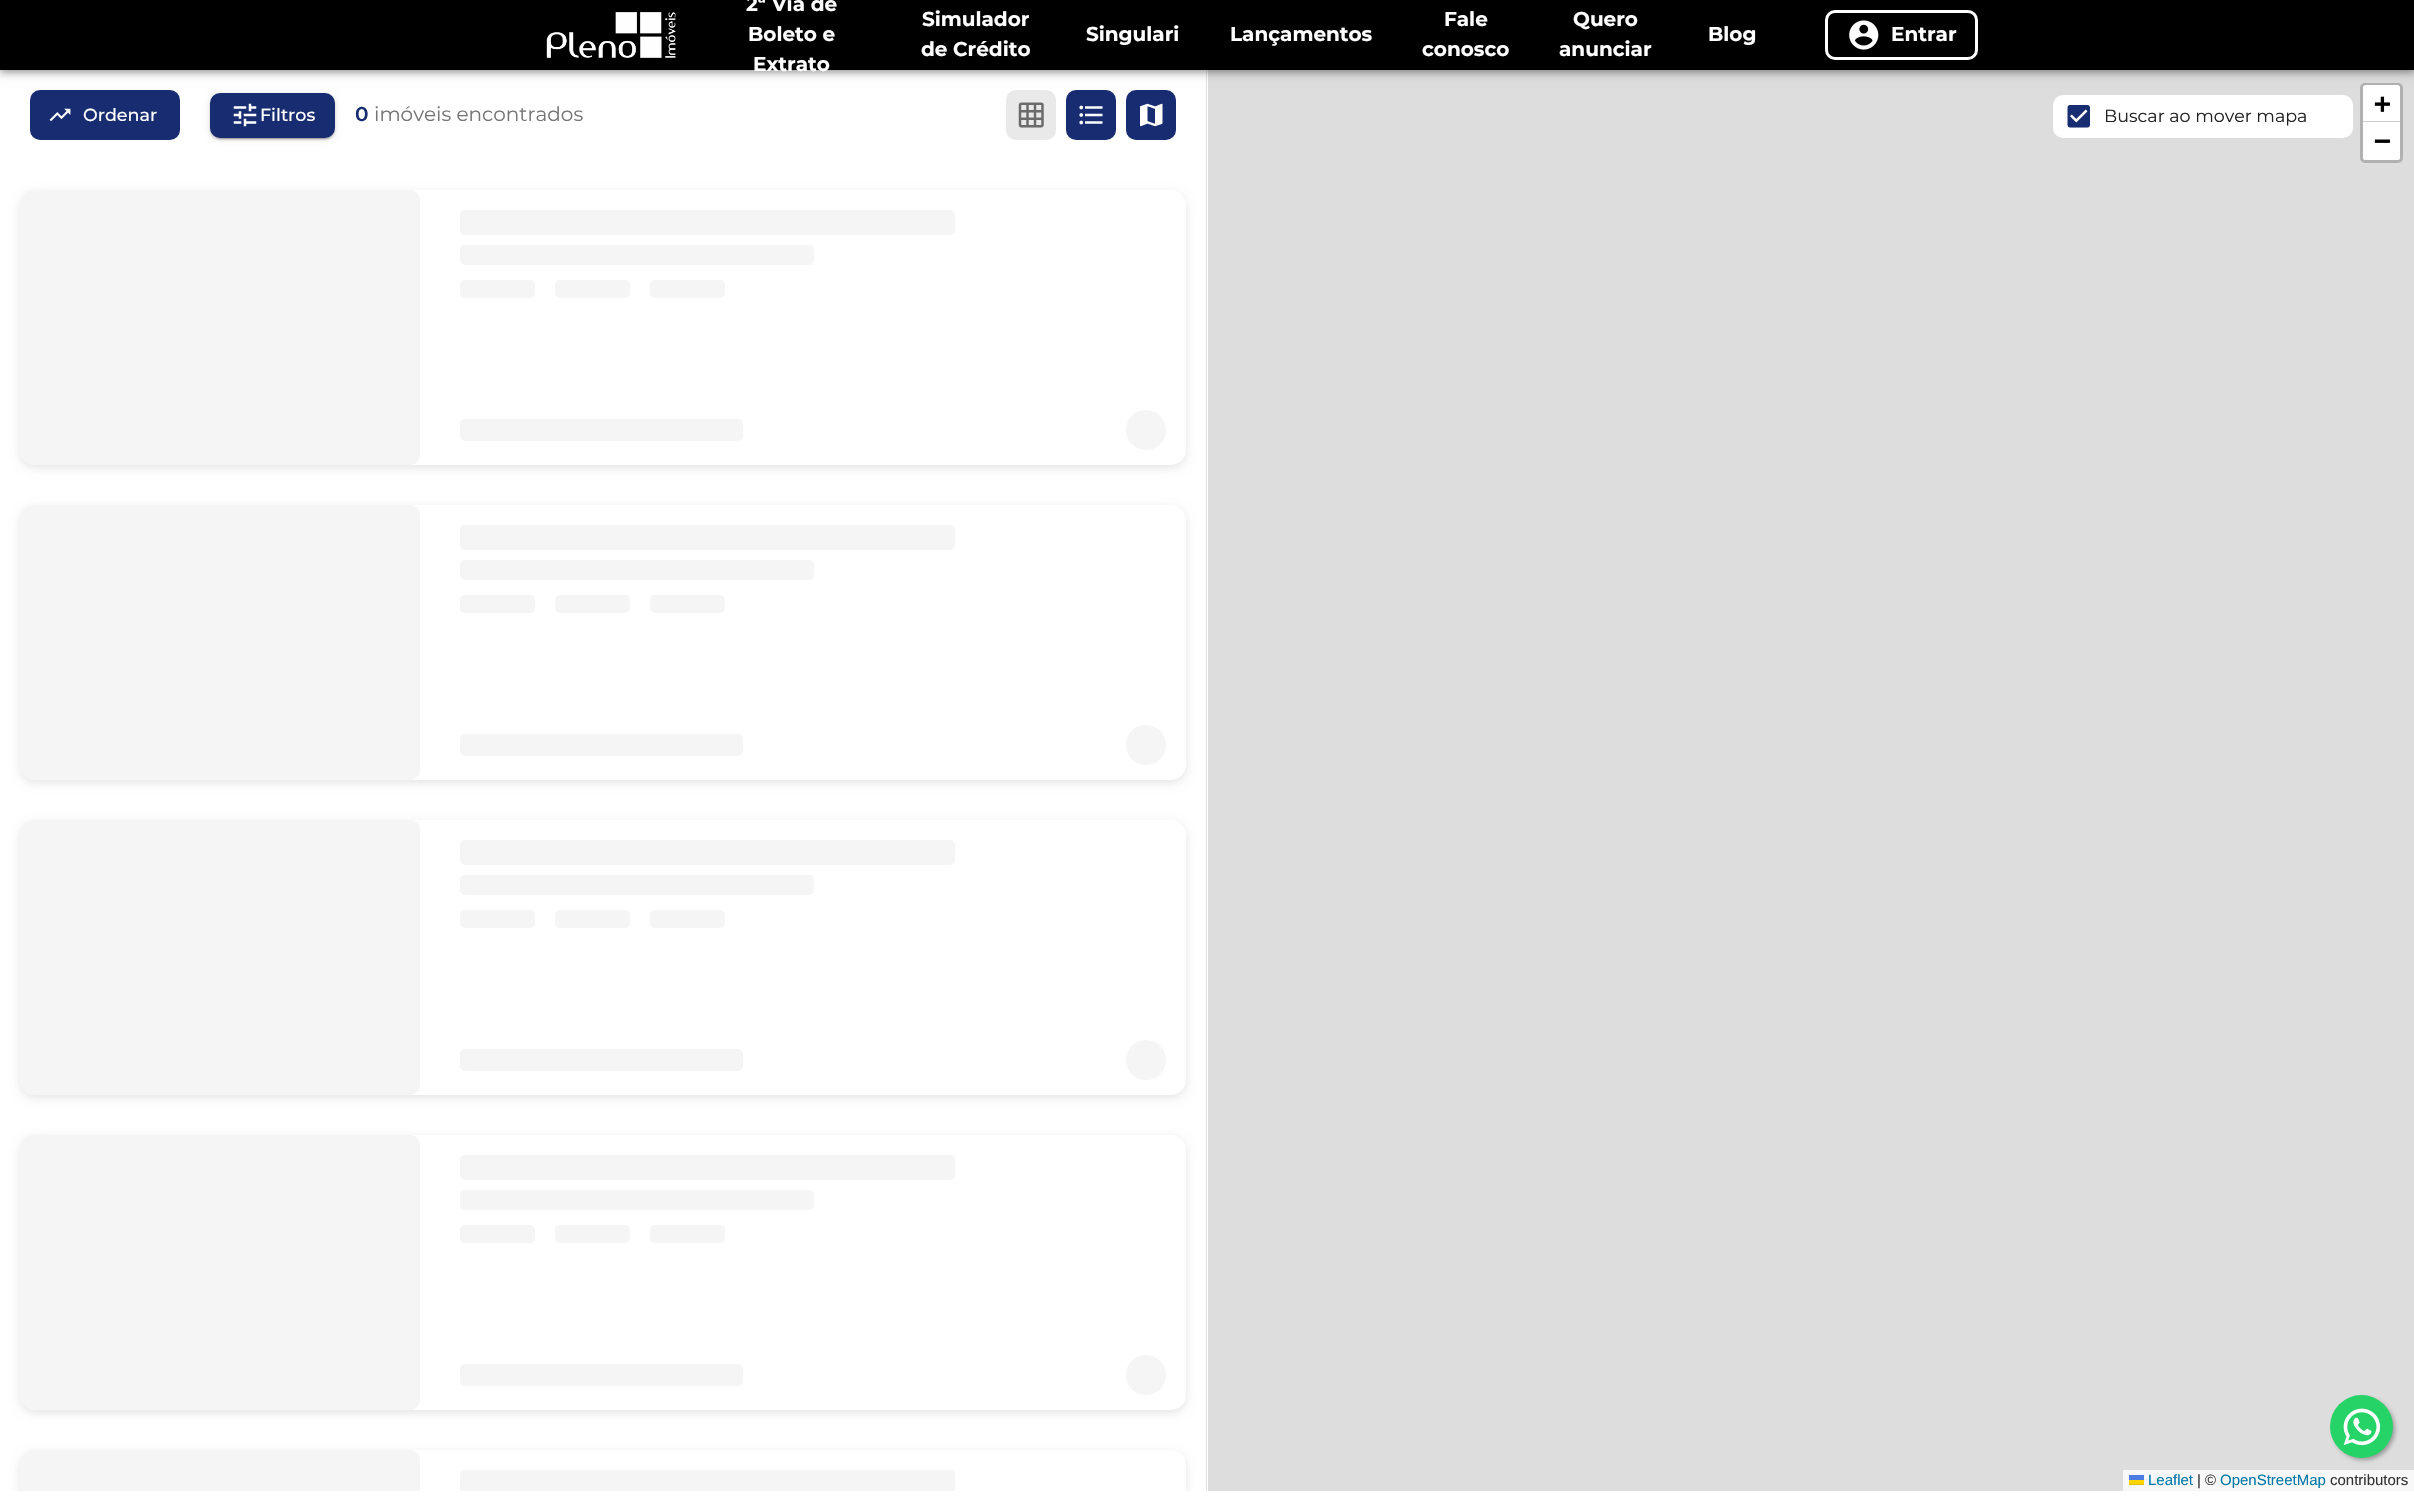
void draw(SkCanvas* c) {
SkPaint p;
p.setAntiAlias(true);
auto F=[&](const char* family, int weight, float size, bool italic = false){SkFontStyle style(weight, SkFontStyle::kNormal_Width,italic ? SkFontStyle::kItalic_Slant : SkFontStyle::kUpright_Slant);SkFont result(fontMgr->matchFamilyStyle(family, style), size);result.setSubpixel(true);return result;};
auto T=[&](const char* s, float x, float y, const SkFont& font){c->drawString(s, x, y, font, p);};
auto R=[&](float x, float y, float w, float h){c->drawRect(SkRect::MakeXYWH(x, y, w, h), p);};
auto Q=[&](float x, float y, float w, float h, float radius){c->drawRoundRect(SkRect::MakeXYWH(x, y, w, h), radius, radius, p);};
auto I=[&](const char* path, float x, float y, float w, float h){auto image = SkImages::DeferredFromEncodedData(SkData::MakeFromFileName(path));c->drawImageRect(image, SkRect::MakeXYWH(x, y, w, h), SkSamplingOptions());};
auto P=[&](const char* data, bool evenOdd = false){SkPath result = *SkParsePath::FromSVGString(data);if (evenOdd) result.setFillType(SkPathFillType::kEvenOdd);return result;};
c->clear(0xffffffff);
p.setColor(0xffe0e0e0);
R(1206,70,1,1421);
p.setColor(0xffdddddd);
R(1208,70,1206,1421);
p.setStroke(true);
p.setStrokeWidth(3);
p.setColor(0xffb1b1b1);
c->drawRoundRect(SkRect::MakeXYWH(2361.5,84.5,40,77),3.5,3.5,p);
p.setStroke(false);
p.setColor(0xffffffff);
c->drawPath(P("M2365.5 85h32c1.5 0 2.5 1 2.5 2.5v35.5h-37v-35.5c0-1.5 1-2.5 2.5-2.5z"),p);
p.setColor(0x1f000000);
p.setMaskFilter(SkMaskFilter::MakeBlur(kNormal_SkBlurStyle, 6));
c->drawRect(SkRect::MakeXYWH(0,1,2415,70),p);
p.setMaskFilter(nullptr);
p.setColor(0x24000000);
p.setMaskFilter(SkMaskFilter::MakeBlur(kNormal_SkBlurStyle, 3));
c->drawRect(SkRect::MakeXYWH(0,5,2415,70),p);
p.setMaskFilter(nullptr);
p.setColor(0x33000000);
p.setMaskFilter(SkMaskFilter::MakeBlur(kNormal_SkBlurStyle, 2.5));
c->drawRect(SkRect::MakeXYWH(1,4,2413,67),p);
p.setMaskFilter(nullptr);
p.setColor(0xff000000);
R(0,0,2414,70);
I("1.png",546,12,130,46);
auto f1 = F("Montserrat",700,20);
p.setColor(0xffffffff);
T("2ª Via de",746,11,f1);
T("Boleto e",748,41,f1);
T("Extrato",753,71,f1);
T("Simulador",922,26,f1);
T("de Crédito",921,56,f1);
T("Singulari",1086,41,f1);
T("Lançamentos",1230,41,f1);
T("Fale",1444,26,f1);
T("conosco",1422,56,f1);
T("Quero",1573,26,f1);
T("anunciar",1559,56,f1);
T("Blog",1708,41,f1);
p.setStroke(true);
c->drawRoundRect(SkRect::MakeXYWH(1826.5,11.5,150,47),8.5,8.5,p);
I("2.png",1849,20,30,30);
p.setStroke(false);
T("Entrar",1891,41,f1);
p.setColor(0xff182d71);
Q(30,90,150,50,10);
I("3.png",49,108,22,14);
auto f2 = F("Montserrat",500,17.5);
p.setColor(0xffffffff);
T("Ordenar",83,121,f2);
p.setColor(0x1f000000);
p.setMaskFilter(SkMaskFilter::MakeBlur(kNormal_SkBlurStyle, 3));
c->drawRoundRect(SkRect::MakeXYWH(210,94,125,45),10,10,p);
p.setMaskFilter(nullptr);
p.setColor(0x24000000);
p.setMaskFilter(SkMaskFilter::MakeBlur(kNormal_SkBlurStyle, 1));
c->drawRoundRect(SkRect::MakeXYWH(210,95,125,45),10,10,p);
p.setMaskFilter(nullptr);
p.setColor(0x33000000);
p.setMaskFilter(SkMaskFilter::MakeBlur(kNormal_SkBlurStyle, .5));
c->drawRoundRect(SkRect::MakeXYWH(213,99,120,40),8,8,p);
p.setMaskFilter(nullptr);
p.setColor(0xff182d71);
Q(210,93,125,45,10);
I("4.png",233,103,24,24);
p.setColor(0xffffffff);
T("Filtros",260,121,f2);
auto f3 = F("Montserrat",600,20);
p.setColor(0xff182d71);
T("0",355,121,f3);
auto f4 = F("Montserrat",400,20);
p.setColor(0xff757575);
T("imóveis encontrados",374,121,f4);
p.setColor(0xffe9e9e9);
Q(1006,90,50,50,10);
I("5.png",1018,102,26,26);
p.setColor(0xff182d71);
Q(1066,90,50,50,10);
I("6.png",1079,105,24,20);
Q(1126,90,50,50,10);
I("7.png",1140,103,23,24);
p.setColor(0x1a000000);
p.setMaskFilter(SkMaskFilter::MakeBlur(kNormal_SkBlurStyle, 5));
c->drawRoundRect(SkRect::MakeXYWH(20,193,1166,275),15,15,p);
p.setMaskFilter(nullptr);
p.setColor(0xffffffff);
Q(20,190,1166,275,15);
p.setColor(0xfff5f5f5);
c->drawPath(P("M35 190h375c5.5 0 10 4.5 10 10v255c0 5.5-4.5 10-10 10h-375c-8.5 0-15-6.5-15-15v-245c0-8.5 6.5-15 15-15z"),p);
Q(460,210,495,25,5);
Q(460,245,354,20,5);
Q(460,280,75,18,5);
Q(555,280,75,18,5);
Q(650,280,75,18,5);
Q(460,419,283,22,5);
c->drawCircle(1146,430,20,p);
p.setColor(0x1a000000);
p.setMaskFilter(SkMaskFilter::MakeBlur(kNormal_SkBlurStyle, 5));
c->drawRoundRect(SkRect::MakeXYWH(20,508,1166,275),15,15,p);
p.setMaskFilter(nullptr);
p.setColor(0xffffffff);
Q(20,505,1166,275,15);
p.setColor(0xfff5f5f5);
c->drawPath(P("M35 505h375c5.5 0 10 4.5 10 10v255c0 5.5-4.5 10-10 10h-375c-8.5 0-15-6.5-15-15v-245c0-8.5 6.5-15 15-15z"),p);
Q(460,525,495,25,5);
Q(460,560,354,20,5);
Q(460,595,75,18,5);
Q(555,595,75,18,5);
Q(650,595,75,18,5);
Q(460,734,283,22,5);
c->drawCircle(1146,745,20,p);
p.setColor(0x1a000000);
p.setMaskFilter(SkMaskFilter::MakeBlur(kNormal_SkBlurStyle, 5));
c->drawRoundRect(SkRect::MakeXYWH(20,823,1166,275),15,15,p);
p.setMaskFilter(nullptr);
p.setColor(0xffffffff);
Q(20,820,1166,275,15);
p.setColor(0xfff5f5f5);
c->drawPath(P("M35 820h375c5.5 0 10 4.5 10 10v255c0 5.5-4.5 10-10 10h-375c-8.5 0-15-6.5-15-15v-245c0-8.5 6.5-15 15-15z"),p);
Q(460,840,495,25,5);
Q(460,875,354,20,5);
Q(460,910,75,18,5);
Q(555,910,75,18,5);
Q(650,910,75,18,5);
Q(460,1049,283,22,5);
c->drawCircle(1146,1060,20,p);
p.setColor(0x1a000000);
p.setMaskFilter(SkMaskFilter::MakeBlur(kNormal_SkBlurStyle, 5));
c->drawRoundRect(SkRect::MakeXYWH(20,1138,1166,275),15,15,p);
p.setMaskFilter(nullptr);
p.setColor(0xffffffff);
Q(20,1135,1166,275,15);
p.setColor(0xfff5f5f5);
c->drawPath(P("M35 1135h375c5.5 0 10 4.5 10 10v255c0 5.5-4.5 10-10 10h-375c-8.5 0-15-6.5-15-15v-245c0-8.5 6.5-15 15-15z"),p);
Q(460,1155,495,25,5);
Q(460,1190,354,20,5);
Q(460,1225,75,18,5);
Q(555,1225,75,18,5);
Q(650,1225,75,18,5);
Q(460,1364,283,22,5);
c->drawCircle(1146,1375,20,p);
c->save();
c->clipRect(SkRect::MakeXYWH(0,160,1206,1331));
p.setColor(0x1a000000);
p.setMaskFilter(SkMaskFilter::MakeBlur(kNormal_SkBlurStyle, 5));
c->drawRoundRect(SkRect::MakeXYWH(20,1453,1166,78),15,15,p);
p.setMaskFilter(nullptr);
c->restore();
p.setColor(0xffffffff);
c->drawPath(P("M35 1450h1136c8.5 0 15 6.5 15 15v26h-1166v-26c0-8.5 6.5-15 15-15z"),p);
p.setColor(0xfff5f5f5);
c->drawPath(P("M35 1450h375c5.5 0 10 4.5 10 10v31h-400v-26c0-8.5 6.5-15 15-15z"),p);
c->save();
c->clipRect(SkRect::MakeXYWH(0,160,1206,1331));
Q(460,1470,495,25,5);
c->restore();
p.setColor(0xffcccccc);
R(2363,121,37,1);
auto f5 = F("DejaVu Sans Mono",700,28);
p.setColor(0xff000000);
T("+",2374,113,f5);
p.setColor(0xffffffff);
c->drawPath(P("M2363 123h37v34.5c0 1.5-1 2.5-2.5 2.5h-32c-1.5 0-2.5-1-2.5-2.5z"),p);
p.setColor(0xff000000);
T("−",2374,150,f5);
p.setColor(0xfff8f8f8);
R(2123,1470,291,21);
auto f6 = F("Liberation Sans",400,15);
p.setColor(0xff0078a8);
T("Leaflet",2148,1485,f6);
p.setColor(0xff4c7be1);
R(2129,1475,15,5);
p.setColor(0xffffd500);
R(2129,1480,15,4);
p.setColor(0xffe0bc00);
R(2129,1484,15,1);
p.setColor(0xff333333);
T("| ©",2197,1485,f6);
p.setColor(0xff0078a8);
T("OpenStreetMap",2220,1485,f6);
p.setColor(0xff333333);
T("contributors",2330,1485,f6);
p.setColor(0xffffffff);
Q(2053,95,300,43,10);
I("8.png",2067,105,23,23);
auto f7 = F("Montserrat",400,17.5);
p.setColor(0xff212121);
T("Buscar ao mover mapa",2104,122,f7);
p.setColor(0xff999999);
p.setMaskFilter(SkMaskFilter::MakeBlur(kNormal_SkBlurStyle, 2));
c->drawRoundRect(SkRect::MakeXYWH(2333,1398,62,62),31,31,p);
p.setMaskFilter(nullptr);
p.setColor(0xff25d366);
c->drawCircle(2361.5,1426.5,31.5,p);
I("9.png",2343,1408,38,38);
}
